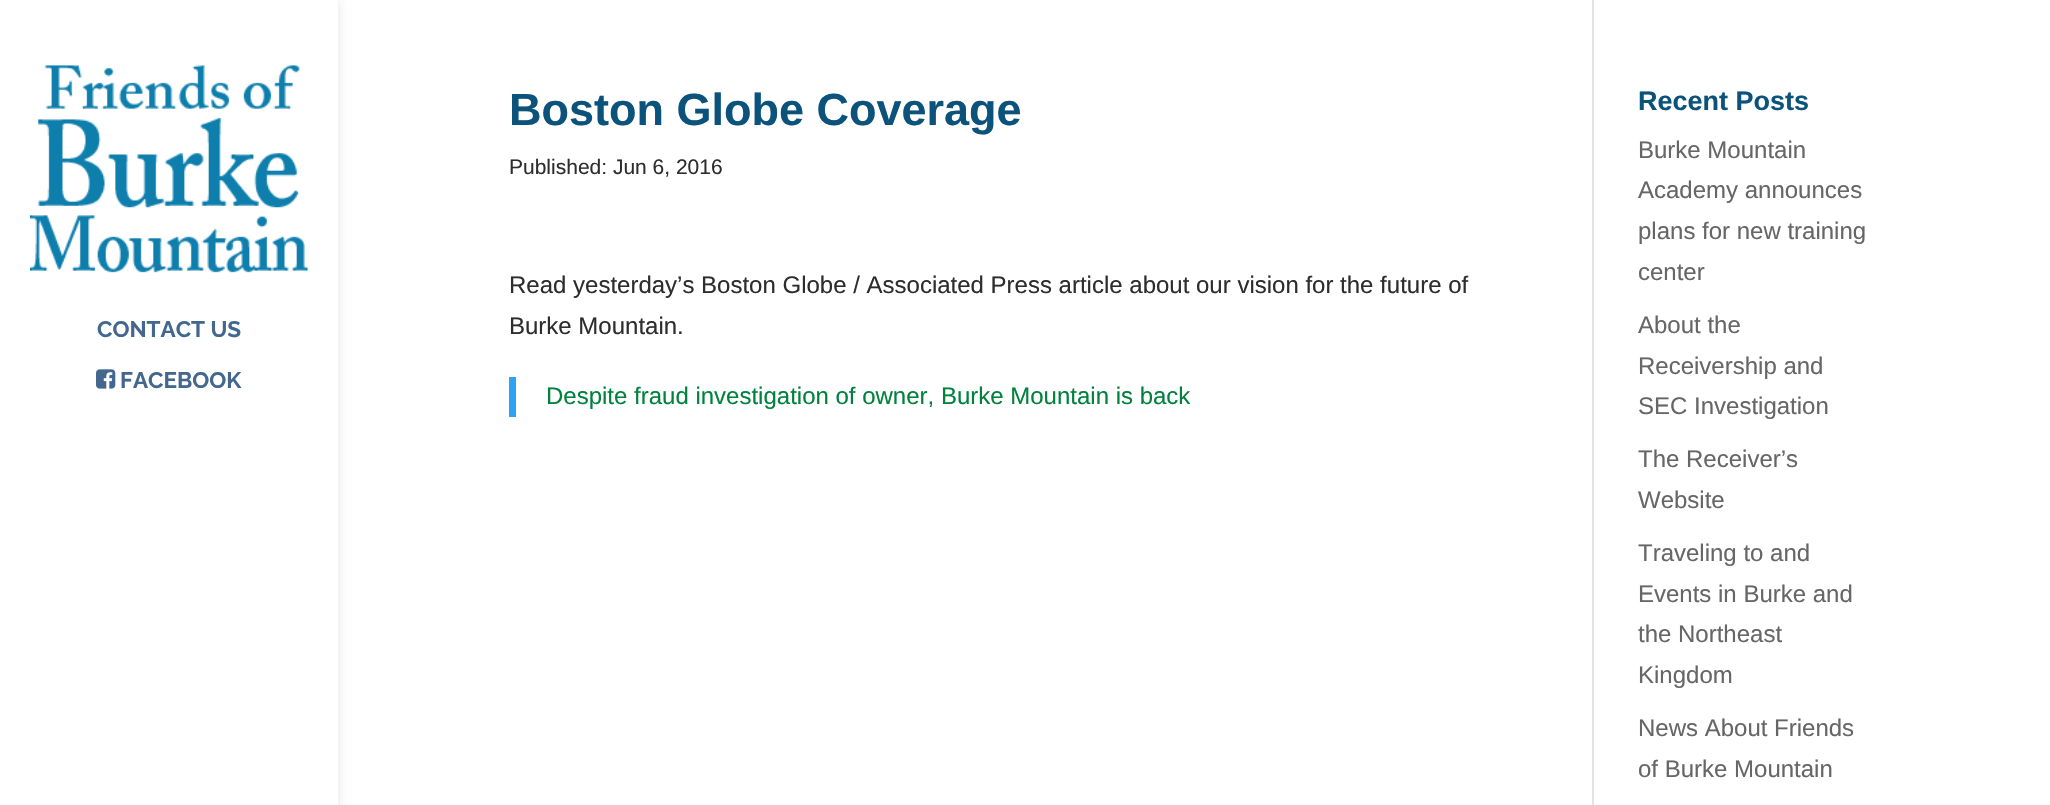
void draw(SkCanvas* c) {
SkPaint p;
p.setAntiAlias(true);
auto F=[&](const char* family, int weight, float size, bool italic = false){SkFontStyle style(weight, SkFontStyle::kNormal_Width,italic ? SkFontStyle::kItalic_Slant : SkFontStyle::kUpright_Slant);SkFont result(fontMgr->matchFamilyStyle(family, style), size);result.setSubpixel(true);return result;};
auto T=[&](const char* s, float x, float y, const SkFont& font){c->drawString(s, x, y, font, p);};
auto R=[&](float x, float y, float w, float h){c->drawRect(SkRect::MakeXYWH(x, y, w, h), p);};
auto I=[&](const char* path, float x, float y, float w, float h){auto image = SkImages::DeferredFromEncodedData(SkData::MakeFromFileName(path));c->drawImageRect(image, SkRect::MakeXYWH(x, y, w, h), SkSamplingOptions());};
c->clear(0xffffffff);
p.setColor(0x1a000000);
p.setMaskFilter(SkMaskFilter::MakeBlur(kNormal_SkBlurStyle, 5));
c->drawRect(SkRect::MakeXYWH(0,0,338,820),p);
p.setMaskFilter(nullptr);
p.setColor(0xffffffff);
R(0,0,338,805);
I("1.png",30,65,278,208);
auto f1 = F("Raleway",700,22.5);
p.setColor(0xff43678f);
T("CONTACT US",97,337,f1);
I("2.png",96,369,20,20);
T("FACEBOOK",120,388,f1);
p.setColor(0xffe2e2e2);
R(1592,0,2,805);
auto f2 = F("Arimo",700,45);
p.setColor(0xff0c537c);
T("Boston Globe Coverage",509,125,f2);
auto f3 = F("Arimo",400,21);
p.setColor(0xff2d2d2d);
T("Published: Jun 6, 2016",509,174,f3);
auto f4 = F("Arimo",400,24);
T("Read yesterday’s Boston Globe / Associated Press article about our vision for the future of",509,293,f4);
T("Burke Mountain.",509,334,f4);
p.setColor(0xff2ea3f2);
R(509,377,7,40);
p.setColor(0xff00823e);
T("Despite fraud investigation of owner, Burke Mountain is back",546,404,f4);
auto f5 = F("Arimo",700,27);
p.setColor(0xff0c537c);
T("Recent Posts",1638,110,f5);
p.setColor(0xff666666);
T("Burke Mountain",1638,158,f4);
T("Academy announces",1638,198,f4);
T("plans for new training",1638,239,f4);
T("center",1638,280,f4);
T("About the",1638,333,f4);
T("Receivership and",1638,374,f4);
T("SEC Investigation",1638,414,f4);
T("The Receiver’s",1638,467,f4);
T("Website",1638,508,f4);
T("Traveling to and",1638,561,f4);
T("Events in Burke and",1638,602,f4);
T("the Northeast",1638,642,f4);
T("Kingdom",1638,683,f4);
T("News About Friends",1638,736,f4);
T("of Burke Mountain",1638,777,f4);
}
